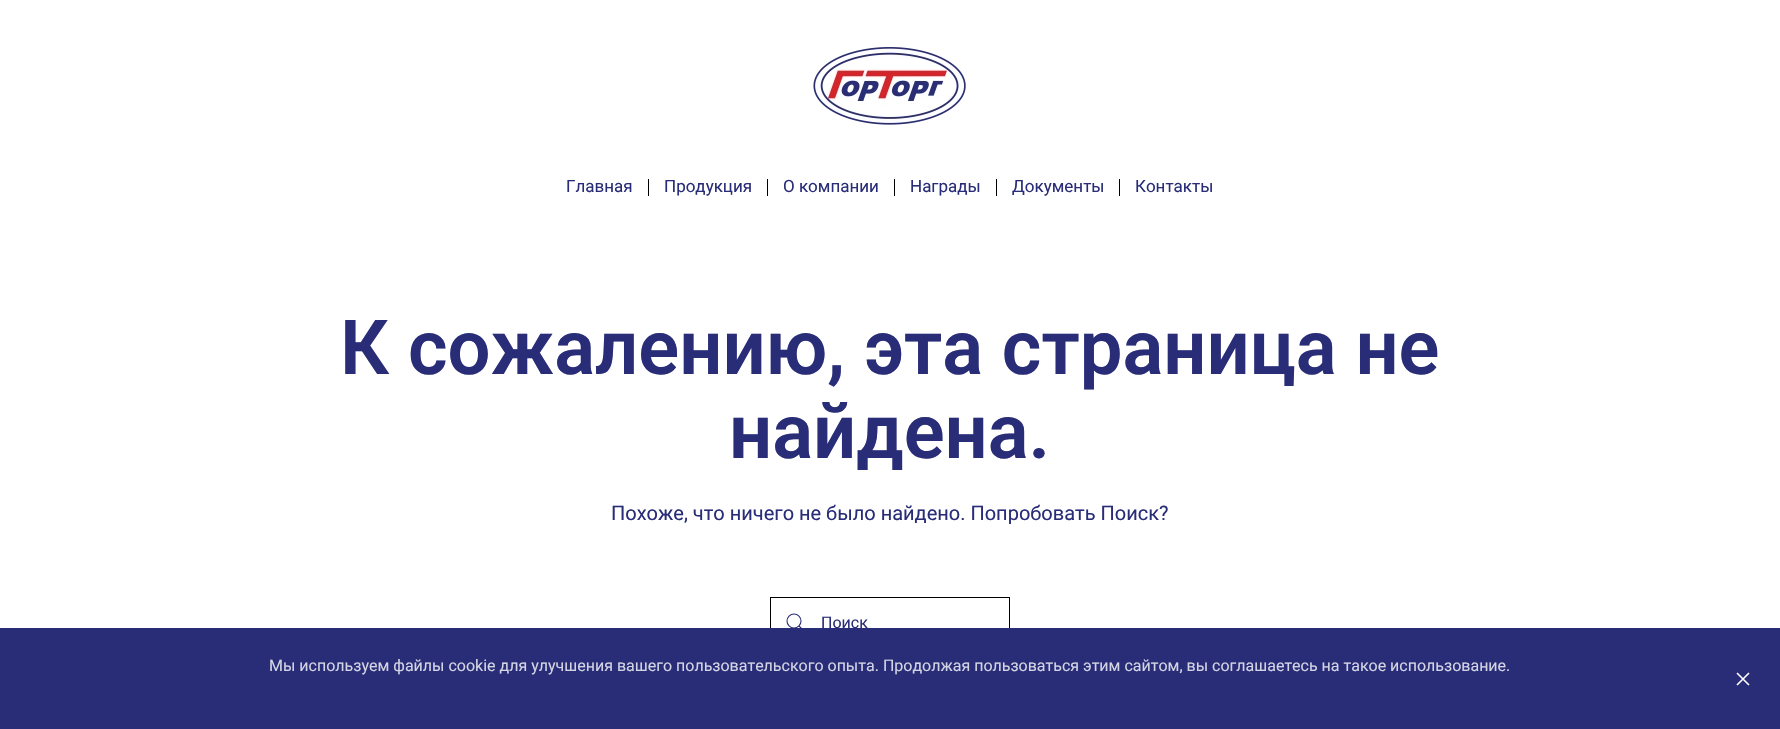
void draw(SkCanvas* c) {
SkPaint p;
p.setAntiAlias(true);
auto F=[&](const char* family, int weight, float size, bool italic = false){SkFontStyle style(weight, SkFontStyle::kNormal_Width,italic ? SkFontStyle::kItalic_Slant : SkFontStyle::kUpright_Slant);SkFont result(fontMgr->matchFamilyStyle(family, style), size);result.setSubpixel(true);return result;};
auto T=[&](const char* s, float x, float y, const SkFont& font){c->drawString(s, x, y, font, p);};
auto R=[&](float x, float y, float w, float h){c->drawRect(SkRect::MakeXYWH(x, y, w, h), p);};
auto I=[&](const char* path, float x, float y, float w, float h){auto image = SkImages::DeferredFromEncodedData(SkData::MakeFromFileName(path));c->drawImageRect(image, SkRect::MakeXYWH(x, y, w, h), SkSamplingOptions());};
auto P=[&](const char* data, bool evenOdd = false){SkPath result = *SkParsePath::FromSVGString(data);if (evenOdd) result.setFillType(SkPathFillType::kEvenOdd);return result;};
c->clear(0xffffffff);
I("1.png",813,47,153,78);
auto f1 = F("Roboto",400,17);
p.setColor(0xff292d78);
T("Главная",566,192,f1);
p.setColor(0xff000000);
R(648,179,1,17);
p.setColor(0xff292d78);
T("Продукция",664,192,f1);
p.setColor(0xff000000);
R(767,179,1,17);
p.setColor(0xff292d78);
T("О компании",783,192,f1);
p.setColor(0xff000000);
R(894,179,1,17);
p.setColor(0xff292d78);
T("Награды",910,192,f1);
p.setColor(0xff000000);
R(996,179,1,17);
p.setColor(0xff292d78);
T("Документы",1012,192,f1);
p.setColor(0xff000000);
R(1119,179,1,17);
p.setColor(0xff292d78);
T("Контакты",1135,192,f1);
auto f2 = F("Roboto",600,76);
T("К сожалению, эта страница не",340,374,f2);
T("найдена.",729,458,f2);
auto f3 = F("Roboto",400,20);
T("Похоже, что ничего не было найдено. Попробовать Поиск?",611,520,f3);
p.setStroke(true);
p.setStrokeWidth(1);
p.setColor(0xff000000);
c->drawRect(SkRect::MakeXYWH(770.5,597.5,239,49),p);
p.setStrokeWidth(1.1);
p.setColor(0xff292d78);
c->drawCircle(794,621,7,p);
c->drawPath(P("M799 626l4 4z"),p);
auto f4 = F("Roboto",400,16);
p.setStroke(false);
T("Поиск",821,628,f4);
R(0,628,1780,101);
p.setColor(0xffd4d5e4);
T("Мы используем файлы cookie для улучшения вашего пользовательского опыта. Продолжая пользоваться этим сайтом, вы соглашаетесь на такое использование.",269,671,f4);
p.setStroke(true);
p.setStrokeWidth(1.6);
p.setColor(0xffffffff);
c->drawPath(P("M1737 673l12 12m0-12l-12 12"),p);
}
